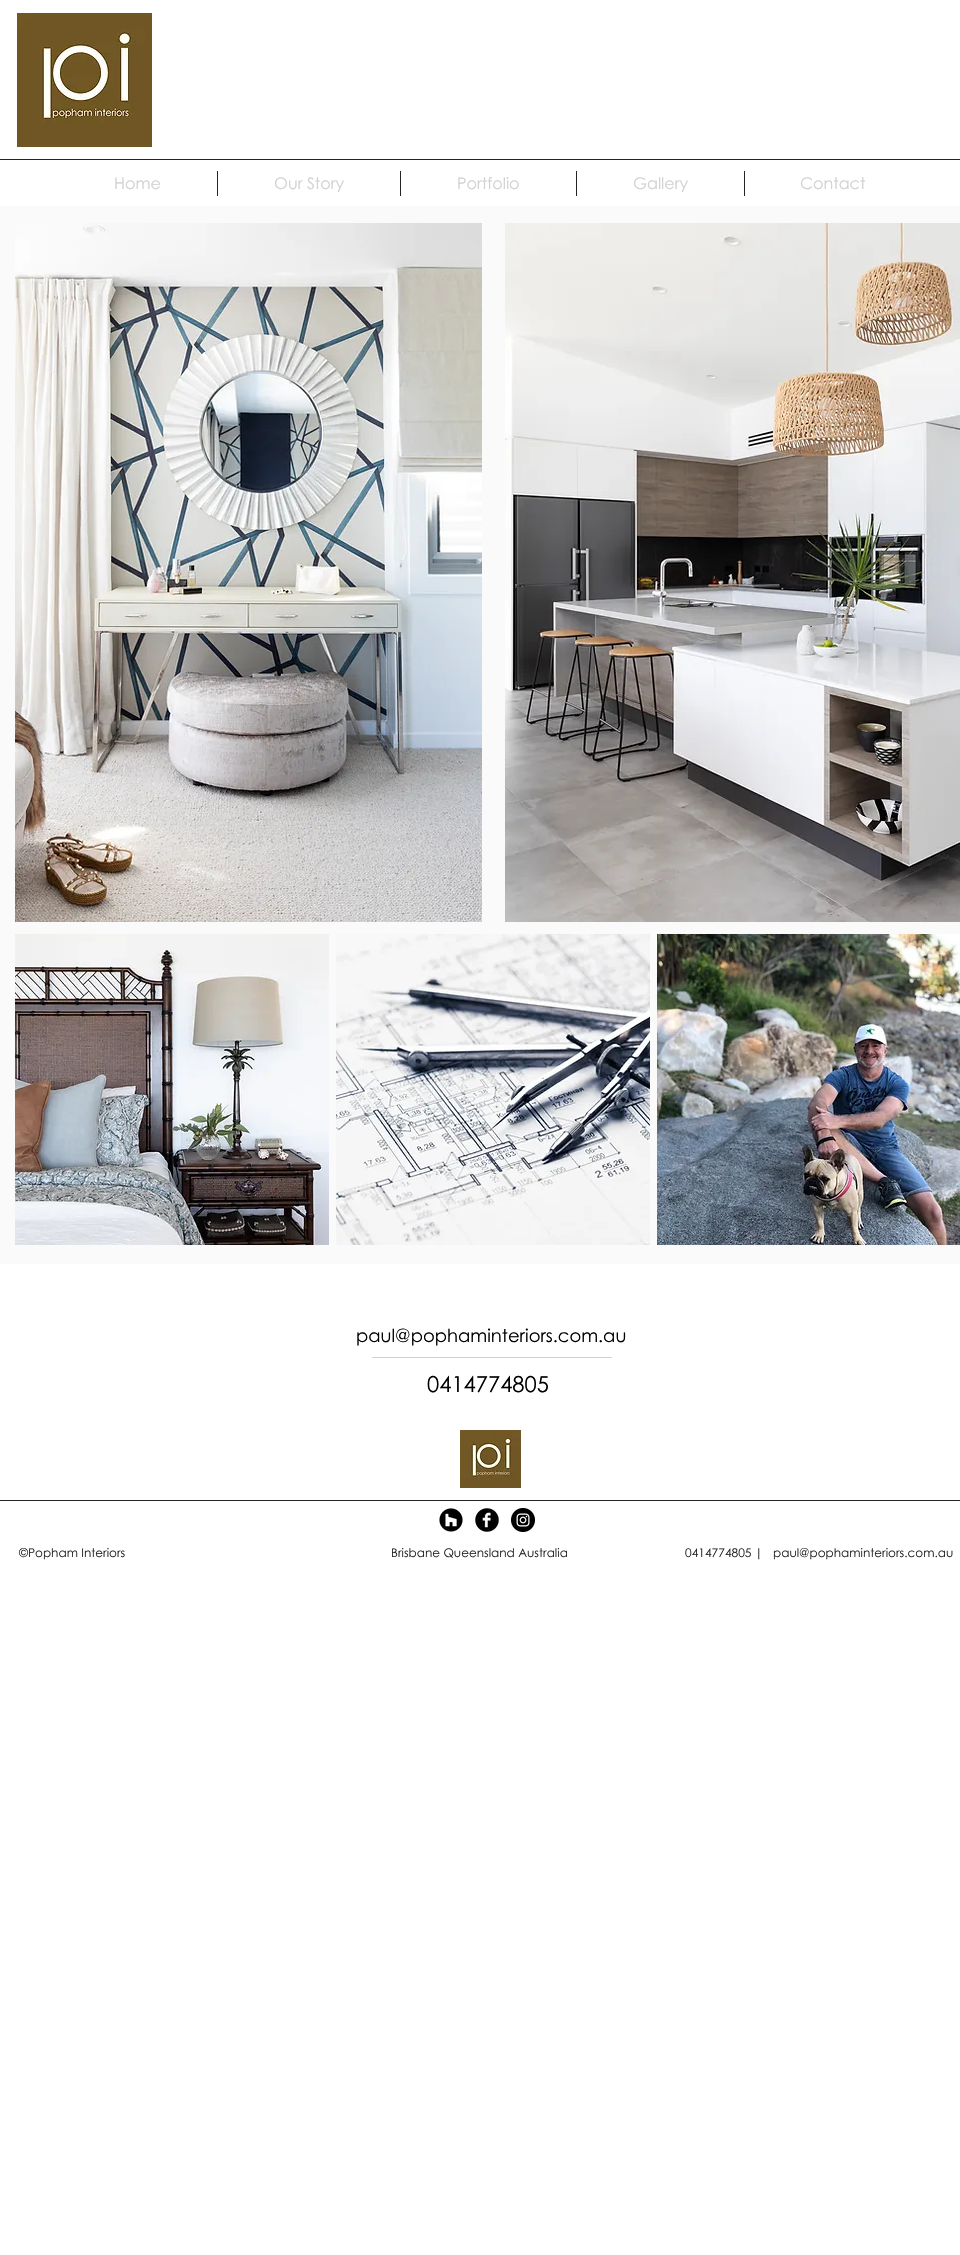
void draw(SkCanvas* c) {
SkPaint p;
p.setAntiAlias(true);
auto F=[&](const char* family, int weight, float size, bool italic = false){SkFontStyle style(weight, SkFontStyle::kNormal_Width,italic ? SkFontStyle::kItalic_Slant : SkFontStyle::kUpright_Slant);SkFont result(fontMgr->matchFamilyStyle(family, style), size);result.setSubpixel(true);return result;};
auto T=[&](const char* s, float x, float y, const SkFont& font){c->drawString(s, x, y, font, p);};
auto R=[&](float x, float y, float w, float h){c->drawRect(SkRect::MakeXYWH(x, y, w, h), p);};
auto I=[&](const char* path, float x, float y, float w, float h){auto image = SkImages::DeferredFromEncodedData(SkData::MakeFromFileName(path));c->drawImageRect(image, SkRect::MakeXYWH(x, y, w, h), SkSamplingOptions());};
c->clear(0xffffffff);
I("1.png",17,13,135,134);
p.setColor(0xff242424);
R(0,159,960,1);
auto f1 = F("Century Gothic",400,16);
p.setColor(0xffd1d1d1);
T("Home",114,189,f1);
p.setColor(0xff242424);
R(217,171,1,25);
p.setColor(0xffd1d1d1);
T("Our Story",274,189,f1);
p.setColor(0xff242424);
R(400,171,1,25);
p.setColor(0xffd1d1d1);
T("Portfolio",457,189,f1);
p.setColor(0xff242424);
R(576,171,1,25);
p.setColor(0xffd1d1d1);
T("Gallery",633,189,f1);
p.setColor(0xff242424);
R(744,171,1,25);
p.setColor(0xffd1d1d1);
T("Contact",800,189,f1);
p.setColor(0xfffafafa);
R(0,206,960,1058);
I("2.png",15,223,467,699);
I("3.png",505,223,455,699);
I("4.png",15,934,314,311);
I("5.png",336,934,314,311);
I("6.png",657,934,303,311);
auto f2 = F("Century Gothic",400,18);
p.setColor(0xff000000);
T("paul@pophaminteriors.com.au",356,1342,f2);
p.setColor(0xffd1d1d1);
R(372,1357,240,1);
auto f3 = F("Century Gothic",400,22);
p.setColor(0xff000000);
T("0414774805",427,1392,f3);
I("7.png",460,1430,61,58);
p.setColor(0xff242424);
R(0,1500,960,1);
I("8.png",439,1508,24,24);
I("9.png",475,1508,24,24);
I("10.png",511,1508,24,24);
auto f4 = F("Century Gothic",400,12);
T("©Popham Interiors",19,1557,f4);
T("Brisbane Queensland Australia",391,1557,f4);
T("0414774805 |",685,1557,f4);
T("paul@pophaminteriors.com.au",773,1557,f4);
}
